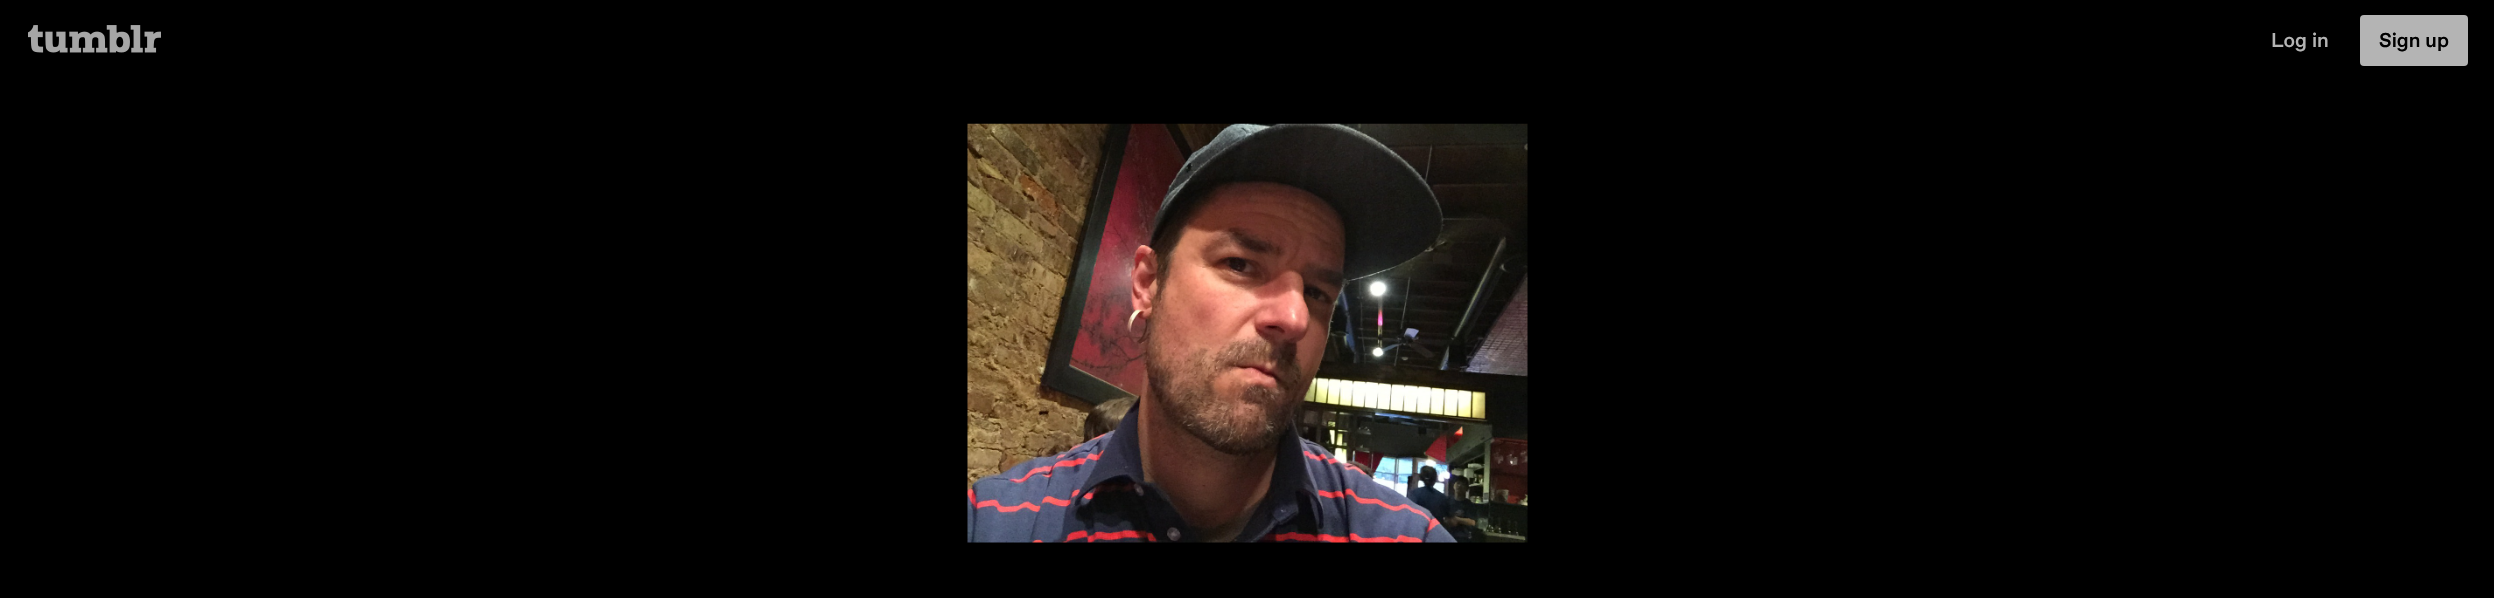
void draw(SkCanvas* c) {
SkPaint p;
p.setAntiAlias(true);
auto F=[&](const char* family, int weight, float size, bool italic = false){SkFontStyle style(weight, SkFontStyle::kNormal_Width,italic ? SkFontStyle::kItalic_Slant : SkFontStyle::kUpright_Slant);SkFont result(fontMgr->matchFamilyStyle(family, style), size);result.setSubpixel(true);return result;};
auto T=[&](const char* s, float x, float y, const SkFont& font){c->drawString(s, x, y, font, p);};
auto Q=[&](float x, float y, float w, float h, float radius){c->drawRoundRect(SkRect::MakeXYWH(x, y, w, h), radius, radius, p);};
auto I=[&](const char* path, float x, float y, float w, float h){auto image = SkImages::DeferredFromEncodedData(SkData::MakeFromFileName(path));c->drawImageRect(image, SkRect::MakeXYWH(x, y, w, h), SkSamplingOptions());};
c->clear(0xff000000);
I("1.png",28,25,133,28);
auto f1 = F("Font",500,20);
p.setColor(0xffb4b4b4);
T("Log in",2271,47,f1);
Q(2360,15,108,51,4);
p.setColor(0xff000000);
T("Sign up",2379,47,f1);
I("2.png",967,123,561,420);
}
